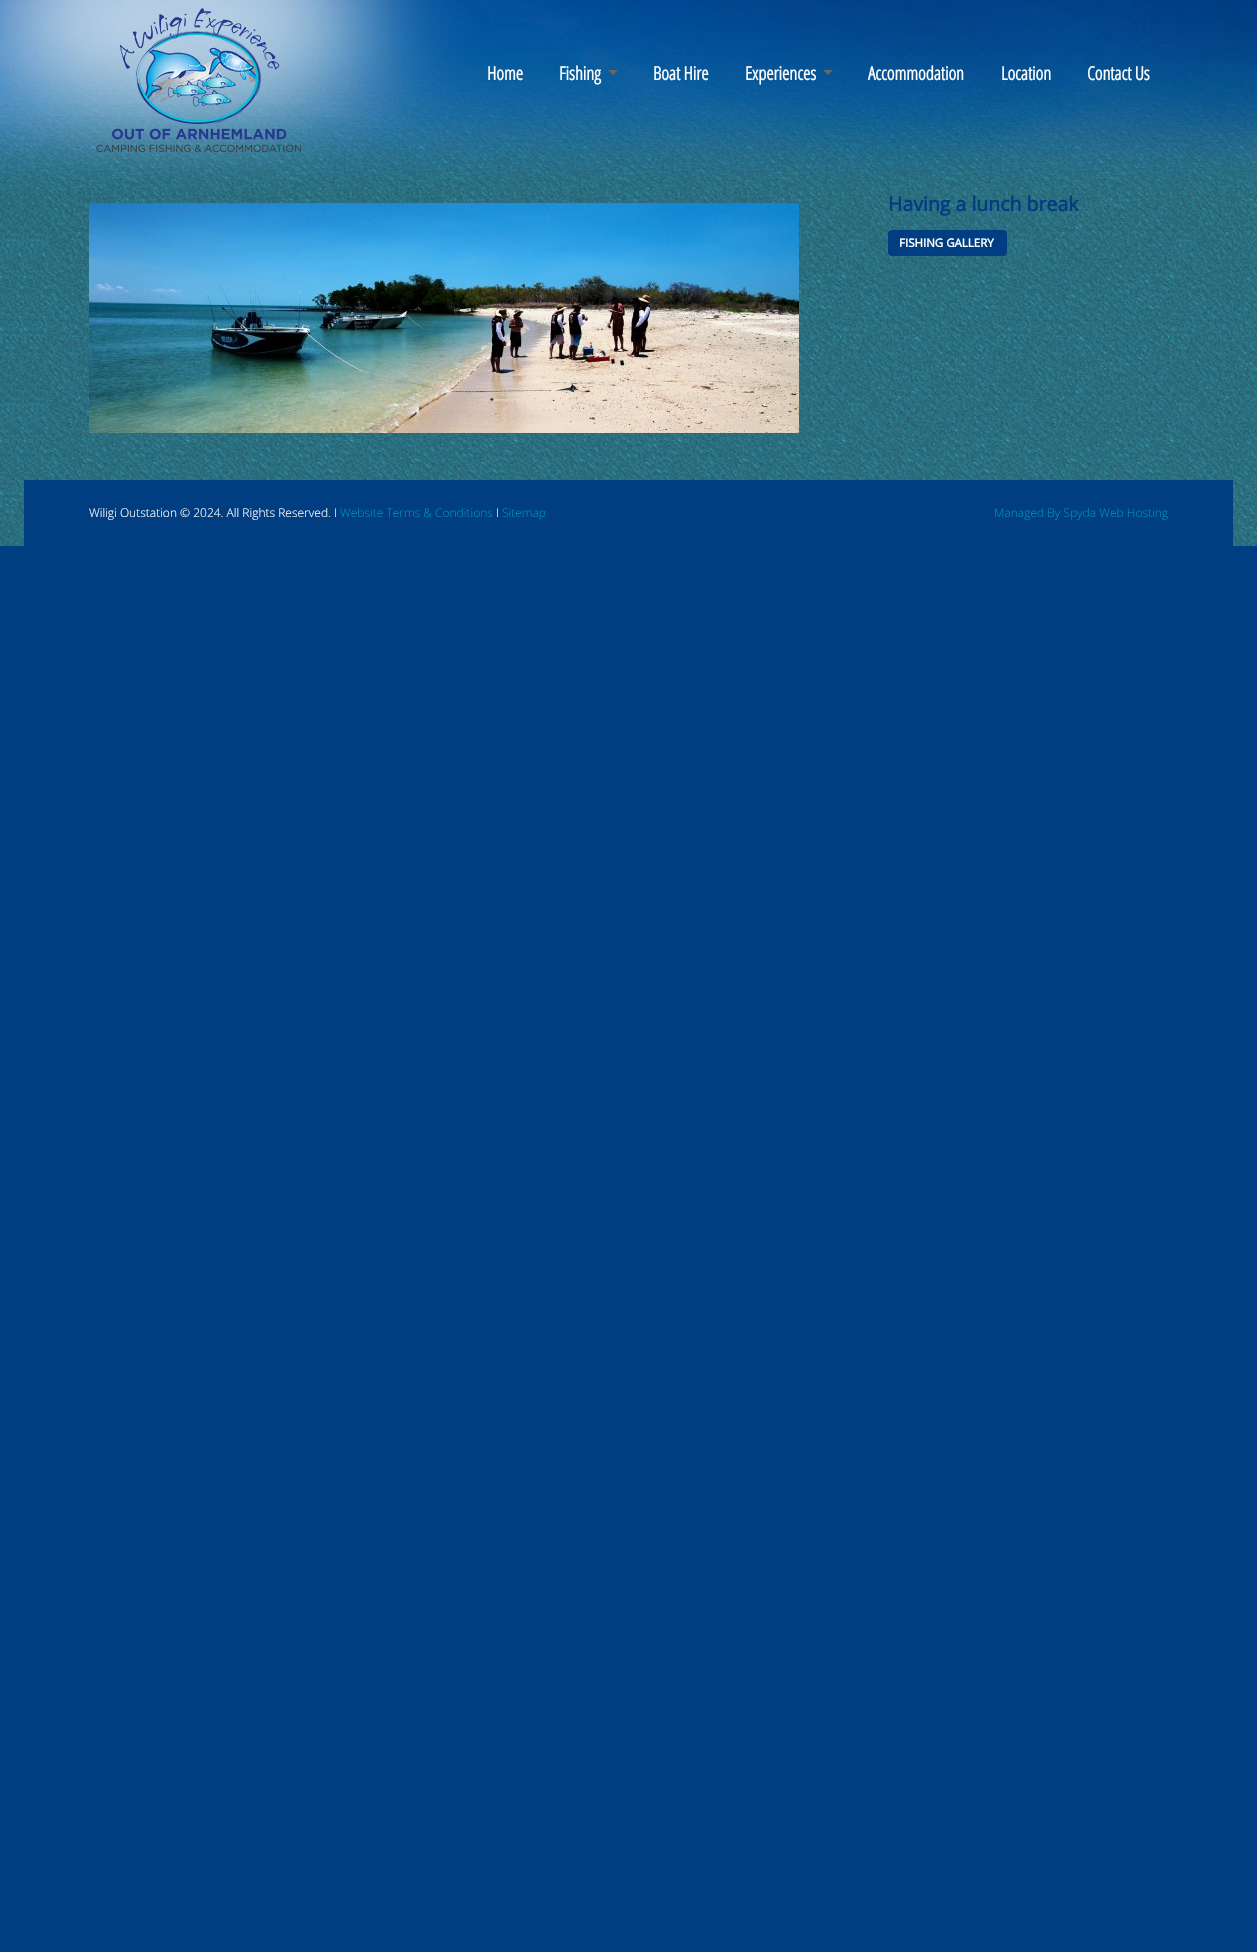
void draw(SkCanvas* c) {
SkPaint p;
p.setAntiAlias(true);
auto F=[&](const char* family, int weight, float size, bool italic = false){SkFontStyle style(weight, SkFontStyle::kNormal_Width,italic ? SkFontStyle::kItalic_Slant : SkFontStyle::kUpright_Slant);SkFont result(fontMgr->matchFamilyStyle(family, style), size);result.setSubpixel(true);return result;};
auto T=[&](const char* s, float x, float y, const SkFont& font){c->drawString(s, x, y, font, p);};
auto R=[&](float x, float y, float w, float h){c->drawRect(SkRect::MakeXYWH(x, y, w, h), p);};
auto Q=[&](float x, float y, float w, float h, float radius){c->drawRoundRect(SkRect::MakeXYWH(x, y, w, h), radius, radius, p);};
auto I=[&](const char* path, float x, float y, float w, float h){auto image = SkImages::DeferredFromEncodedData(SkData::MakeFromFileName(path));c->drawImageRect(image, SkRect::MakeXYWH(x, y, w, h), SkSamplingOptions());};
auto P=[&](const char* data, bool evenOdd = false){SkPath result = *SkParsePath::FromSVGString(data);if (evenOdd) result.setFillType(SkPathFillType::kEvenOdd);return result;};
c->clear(0xff003d81);
I("1.png",0,0,1257,191);
I("2.png",96,8,205,144);
auto f1 = F("Open Sans Condensed",700,18.5);
p.setColor(0xffffffff);
T("Home",487,80,f1);
T("Fishing",559,80,f1);
p.setColor(0xff666666);
c->drawPath(P("M608 70h10l-5 5z"),p);
p.setColor(0xffffffff);
T("Boat Hire",653,80,f1);
T("Experiences",745,80,f1);
p.setColor(0xff666666);
c->drawPath(P("M823 70h10l-5 5z"),p);
p.setColor(0xffffffff);
T("Accommodation",868,80,f1);
T("Location",1001,80,f1);
T("Contact Us",1087,80,f1);
I("3.png",0,191,1257,355);
I("4.png",24,191,1209,289);
I("5.png",89,203,710,230);
auto f2 = F("Open Sans",700,19.5);
p.setColor(0xff003d81);
T("Having a lunch break",888,211,f2);
Q(888,230,119,26,4);
auto f3 = F("Open Sans",700,11.5);
p.setColor(0xffffffff);
T("FISHING GALLERY",899,247,f3);
p.setColor(0xff003d81);
R(24,480,1209,66);
auto f4 = F("Open Sans",300,12);
p.setColor(0xffffffff);
T("Wiligi Outstation © 2024. All Rights Reserved. I",89,517,f4);
p.setColor(0xff0092bc);
T("Website Terms & Conditions",340,517,f4);
p.setColor(0xffffffff);
T("I",496,517,f4);
p.setColor(0xff0092bc);
T("Sitemap",502,517,f4);
T("Managed By Spyda Web Hosting",994,517,f4);
}
